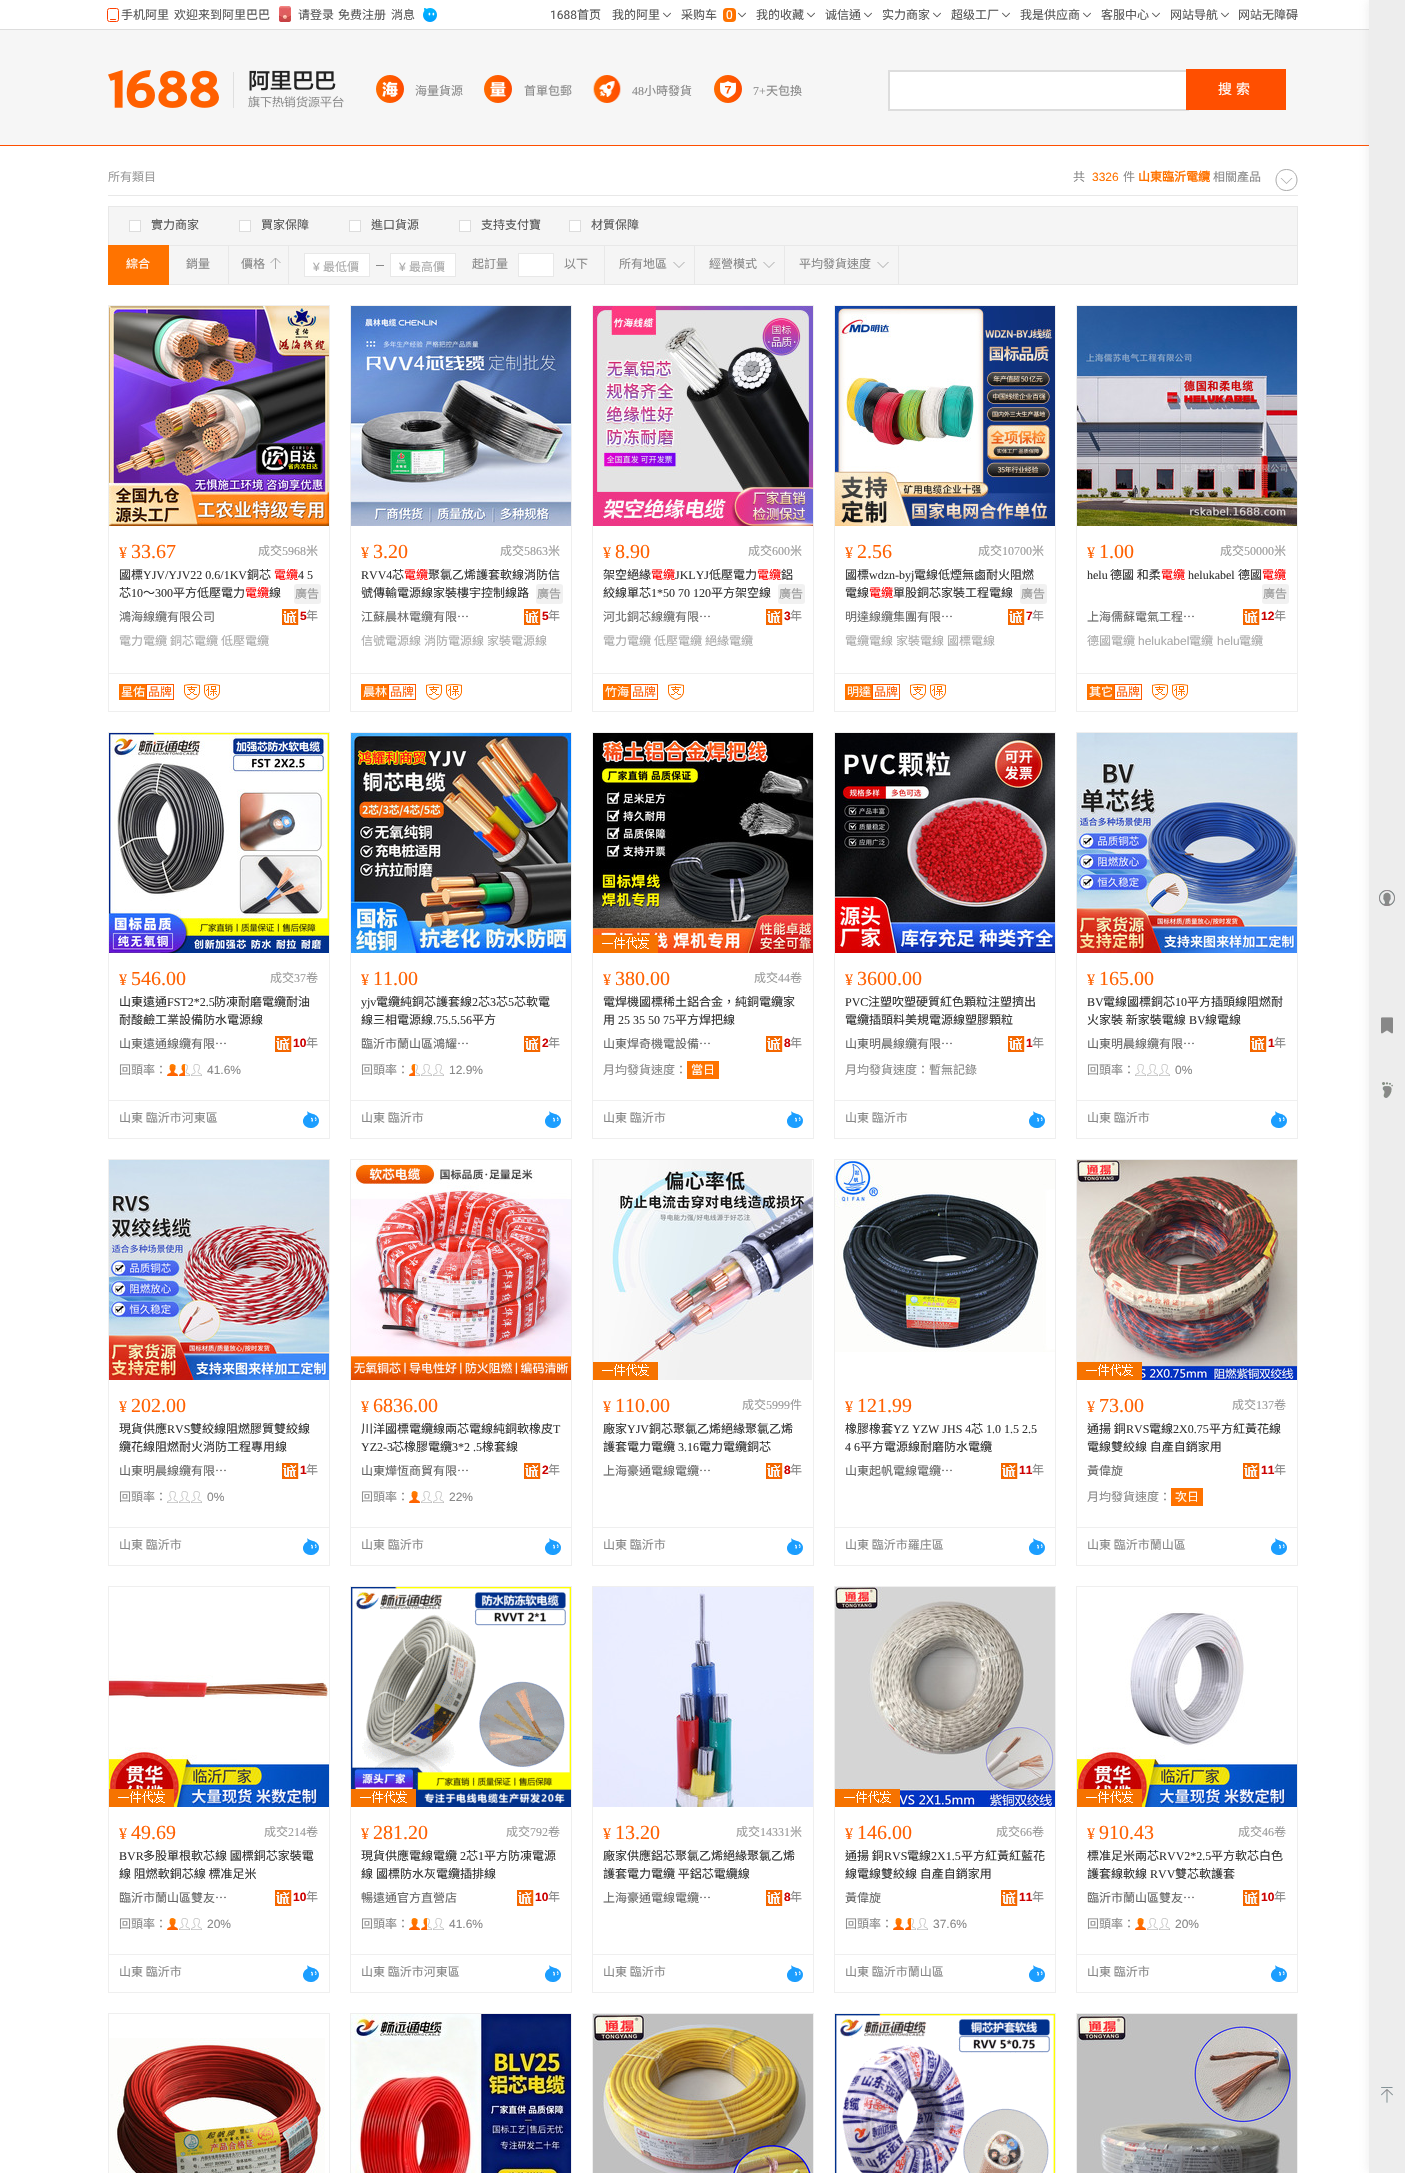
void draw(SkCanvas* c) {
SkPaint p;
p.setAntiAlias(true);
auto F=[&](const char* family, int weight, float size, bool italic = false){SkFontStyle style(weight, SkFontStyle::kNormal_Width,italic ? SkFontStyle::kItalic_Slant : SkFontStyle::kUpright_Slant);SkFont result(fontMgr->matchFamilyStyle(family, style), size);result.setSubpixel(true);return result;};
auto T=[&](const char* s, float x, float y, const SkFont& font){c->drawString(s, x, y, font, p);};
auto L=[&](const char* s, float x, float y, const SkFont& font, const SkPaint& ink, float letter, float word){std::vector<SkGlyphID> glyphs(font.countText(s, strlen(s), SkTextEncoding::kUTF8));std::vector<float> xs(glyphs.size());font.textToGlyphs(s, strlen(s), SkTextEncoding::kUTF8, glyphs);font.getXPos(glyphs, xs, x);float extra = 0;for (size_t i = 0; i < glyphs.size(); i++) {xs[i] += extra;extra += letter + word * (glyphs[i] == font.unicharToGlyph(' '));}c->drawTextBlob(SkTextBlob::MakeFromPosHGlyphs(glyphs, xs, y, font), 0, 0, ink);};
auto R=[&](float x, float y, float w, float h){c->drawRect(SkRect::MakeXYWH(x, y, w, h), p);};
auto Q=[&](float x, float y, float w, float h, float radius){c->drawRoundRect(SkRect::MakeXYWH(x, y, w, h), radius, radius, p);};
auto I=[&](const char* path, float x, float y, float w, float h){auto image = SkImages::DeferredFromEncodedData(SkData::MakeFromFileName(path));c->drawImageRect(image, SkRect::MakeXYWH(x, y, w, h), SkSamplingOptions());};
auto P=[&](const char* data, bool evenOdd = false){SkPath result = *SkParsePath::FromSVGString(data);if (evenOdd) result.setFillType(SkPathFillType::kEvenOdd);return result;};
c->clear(0xffffffff);
p.setColor(0xffdddddd);
R(0,29,1369,1);
p.setStroke(true);
p.setStrokeWidth(1);
p.setColor(0xffff4000);
c->drawRoundRect(SkRect::MakeXYWH(107.5,8.5,11,13),2,2,p);
auto f1 = F("Noto Sans CJK TC",400,12);
p.setStroke(false);
p.setColor(0xff555555);
T("手机阿里",121,19,f1);
p.setStroke(true);
p.setStrokeCap(SkPaint::kRound_Cap);
p.setStrokeJoin(SkPaint::kRound_Join);
p.setColor(0xffff4000);
c->drawPath(P("M110.5 19.5h5"),p);
p.setStroke(false);
p.setColor(0xff555555);
T("欢迎来到阿里巴巴",174,19,f1);
I("1.png",279,6,12,16);
T("请登录",298,19,f1);
T("免费注册",338,19,f1);
T("消息",391,19,f1);
I("2.png",423,8,14,14);
auto f2 = F("Roboto",400,12);
T("1688",550,19,f2);
T("首页",577,19,f1);
T("我的阿里",612,19,f1);
I("3.png",663,12,8,6);
T("采购车",681,19,f1);
p.setColor(0xffff7300);
Q(723,8,13,14,4);
p.setColor(0xffffffff);
T("0",726,19,f2);
I("3.png",738,12,8,6);
p.setColor(0xff555555);
T("我的收藏",756,19,f1);
I("3.png",807,12,8,6);
T("诚信通",825,19,f1);
I("3.png",864,12,8,6);
T("实力商家",882,19,f1);
I("3.png",933,12,8,6);
T("超级工厂",951,19,f1);
I("3.png",1002,12,8,6);
T("我是供应商",1020,19,f1);
I("3.png",1083,12,8,6);
T("客服中心",1101,19,f1);
I("3.png",1152,12,8,6);
T("网站导航",1170,19,f1);
I("3.png",1221,12,8,6);
T("网站无障碍",1238,19,f1);
p.setColor(0xfff6f6f6);
R(0,30,1369,115);
p.setColor(0xffff4f00);
R(0,145,1369,1);
I("4.png",108,70,111,38);
p.setColor(0xffdfdfdf);
R(233,72,1,36);
I("5.png",248,70,96,38);
I("6.png",376,75,28,28);
p.setColor(0xff888888);
T("海量貨源",415,95,f1);
I("7.png",484,75,28,28);
T("首單包郵",524,95,f1);
I("8.png",593,75,28,28);
auto f3 = F("Liberation Serif",400,12);
T("48",632,95,f3);
T("小時發貨",644,95,f1);
I("9.png",714,75,28,28);
T("7+",753,95,f3);
T("天包換",766,95,f1);
p.setColor(0xffffffff);
R(890,72,296,37);
p.setStroke(true);
p.setStrokeWidth(2);
p.setStrokeCap(SkPaint::kButt_Cap);
p.setStrokeJoin(SkPaint::kMiter_Join);
p.setColor(0xffdddddd);
c->drawRect(SkRect::MakeXYWH(889,71,299,39),p);
p.setStroke(false);
p.setColor(0xffff4f00);
R(1186,69,100,41);
auto f4 = F("Noto Sans CJK TC",400,14);
p.setColor(0xffffffff);
L("搜索",1218,94,f4,p,4,0);
p.setColor(0x33999999);
p.setMaskFilter(SkMaskFilter::MakeBlur(kNormal_SkBlurStyle, 5));
c->drawRect(SkRect::MakeXYWH(1369,0,36,2173),p);
p.setMaskFilter(nullptr);
p.setColor(0xffededed);
R(1369,0,36,2173);
I("10.png",1379,890,16,16);
I("11.png",1381,1017,12,17);
I("12.png",1382,1082,11,16);
I("13.png",1381,2087,12,16);
p.setStroke(true);
p.setStrokeWidth(1);
p.setColor(0xffaaaaaa);
c->drawPath(P("M1286.5 190.5c-14 0-14-21 0-21c14 0 14 21 0 21z"),p);
p.setStroke(false);
c->drawPath(P("M1280.5 178h12l-6 6z"),p);
c->save();
c->clipRect(SkRect::MakeXYWH(1281,178,12,6));
p.setColor(0xffffffff);
c->drawPath(P("M1280.5 177h12l-6 6z"),p);
c->restore();
p.setColor(0xffe8e8e8);
R(108,195,1190,1);
p.setColor(0xff999999);
T("所有類目",108,181,f1);
p.setColor(0xff888888);
T("共",1073,181,f1);
auto f5 = F("Liberation Sans",400,12);
p.setColor(0xffff7300);
T("3326",1092,181,f5);
p.setColor(0xff888888);
T("件",1123,181,f1);
auto f6 = F("Noto Sans CJK TC",700,12);
p.setColor(0xffff7300);
T("山東臨沂電纜",1138,181,f6);
p.setColor(0xff888888);
T("相關產品",1213,181,f1);
p.setColor(0xfff5f5f5);
R(109,207,1188,38);
p.setColor(0xffe8e8e8);
R(108,206,1190,1);
R(1297,206,1,39);
R(108,206,1,39);
p.setColor(0xffffffff);
c->drawRect(SkRect::MakeXYWH(129.5,220.5,11,11),p);
p.setStroke(true);
p.setColor(0xffdddddd);
c->drawRect(SkRect::MakeXYWH(129.5,220.5,11,11),p);
p.setStroke(false);
p.setColor(0xff555555);
T("實力商家",151,229,f1);
p.setColor(0xffffffff);
c->drawRect(SkRect::MakeXYWH(239.5,220.5,11,11),p);
p.setStroke(true);
p.setColor(0xffdddddd);
c->drawRect(SkRect::MakeXYWH(239.5,220.5,11,11),p);
p.setStroke(false);
p.setColor(0xff555555);
T("買家保障",261,229,f1);
p.setColor(0xffffffff);
c->drawRect(SkRect::MakeXYWH(349.5,220.5,11,11),p);
p.setStroke(true);
p.setColor(0xffdddddd);
c->drawRect(SkRect::MakeXYWH(349.5,220.5,11,11),p);
p.setStroke(false);
p.setColor(0xff555555);
T("進口貨源",371,229,f1);
p.setColor(0xffffffff);
c->drawRect(SkRect::MakeXYWH(459.5,220.5,11,11),p);
p.setStroke(true);
p.setColor(0xffdddddd);
c->drawRect(SkRect::MakeXYWH(459.5,220.5,11,11),p);
p.setStroke(false);
p.setColor(0xff555555);
T("支持支付寶",481,229,f1);
p.setColor(0xffffffff);
c->drawRect(SkRect::MakeXYWH(569.5,220.5,11,11),p);
p.setStroke(true);
p.setColor(0xffdddddd);
c->drawRect(SkRect::MakeXYWH(569.5,220.5,11,11),p);
p.setStroke(false);
p.setColor(0xff555555);
T("材質保障",591,229,f1);
p.setColor(0xfff5f5f5);
R(289,246,1008,38);
p.setColor(0xffe8e8e8);
R(289,245,1009,1);
R(1297,245,1,40);
R(289,284,1009,1);
p.setColor(0xfff5f5f5);
c->drawRect(SkRect::MakeXYWH(168.5,245.5,60,39),p);
p.setStroke(true);
p.setColor(0xffe8e8e8);
c->drawRect(SkRect::MakeXYWH(168.5,245.5,60,39),p);
p.setStroke(false);
p.setColor(0xffff7300);
R(108,245,61,40);
p.setColor(0xffffffff);
T("綜合",126,268,f1);
p.setColor(0xff888888);
T("銷量",186,268,f1);
p.setColor(0xfff5f5f5);
c->drawRect(SkRect::MakeXYWH(228.5,245.5,60,39),p);
p.setStroke(true);
p.setColor(0xffe8e8e8);
c->drawRect(SkRect::MakeXYWH(228.5,245.5,60,39),p);
p.setStroke(false);
p.setColor(0xff888888);
T("價格",241,268,f1);
p.setColor(0xffaaaaaa);
c->drawPath(P("M281 263h-11l5-5h1z"),p);
p.setColor(0xfff5f5f5);
c->drawPath(P("M281 264h-11l5-5h1z"),p);
p.setColor(0xffaaaaaa);
R(275,258,1,11);
p.setColor(0xffffffff);
c->drawRect(SkRect::MakeXYWH(304.5,253.5,65,23),p);
p.setStroke(true);
p.setColor(0xffe8e8e8);
c->drawRect(SkRect::MakeXYWH(304.5,253.5,65,23),p);
p.setStroke(false);
p.setColor(0xffaaaaaa);
T("¥",313,271,f5);
T("最低價",323,271,f1);
p.setColor(0xff888888);
R(376,265,8,1);
p.setColor(0xffffffff);
c->drawRect(SkRect::MakeXYWH(390.5,253.5,65,23),p);
p.setStroke(true);
p.setColor(0xffe8e8e8);
c->drawRect(SkRect::MakeXYWH(390.5,253.5,65,23),p);
p.setStroke(false);
p.setColor(0xffaaaaaa);
T("¥",399,271,f5);
T("最高價",409,271,f1);
p.setColor(0xff888888);
T("起訂量",472,268,f1);
p.setColor(0xffffffff);
c->drawRect(SkRect::MakeXYWH(518.5,253.5,35,23),p);
p.setStroke(true);
p.setColor(0xffe8e8e8);
c->drawRect(SkRect::MakeXYWH(518.5,253.5,35,23),p);
p.setStroke(false);
p.setColor(0xff888888);
T("以下",564,268,f1);
p.setStroke(true);
p.setColor(0xffe8e8e8);
c->drawRect(SkRect::MakeXYWH(604.5,245.5,90,39),p);
p.setStroke(false);
p.setColor(0xff888888);
T("所有地區",619,268,f1);
p.setColor(0xffaaaaaa);
c->drawPath(P("M673 262h12l-6 6z"),p);
c->save();
c->clipRect(SkRect::MakeXYWH(673,262,12,6));
p.setColor(0xfff5f5f5);
c->drawPath(P("M673 261h12l-6 6z"),p);
c->restore();
p.setStroke(true);
p.setColor(0xffe8e8e8);
c->drawRect(SkRect::MakeXYWH(694.5,245.5,90,39),p);
p.setStroke(false);
p.setColor(0xff888888);
T("經營模式",709,268,f1);
p.setColor(0xffaaaaaa);
c->drawPath(P("M763 262h12l-6 6z"),p);
c->save();
c->clipRect(SkRect::MakeXYWH(763,262,12,6));
p.setColor(0xfff5f5f5);
c->drawPath(P("M763 261h12l-6 6z"),p);
c->restore();
p.setStroke(true);
p.setColor(0xffe8e8e8);
c->drawRect(SkRect::MakeXYWH(784.5,245.5,114,39),p);
p.setStroke(false);
p.setColor(0xff888888);
T("平均發貨速度",799,268,f1);
p.setColor(0xffaaaaaa);
c->drawPath(P("M877 262h12l-6 6z"),p);
c->save();
c->clipRect(SkRect::MakeXYWH(877,262,12,6));
p.setColor(0xfff5f5f5);
c->drawPath(P("M877 261h12l-6 6z"),p);
c->restore();
p.setStroke(true);
p.setColor(0xffefefef);
c->drawRect(SkRect::MakeXYWH(108.5,305.5,221,406),p);
I("14.png",109,306,220,220);
auto f7 = F("Liberation Serif",400,16);
p.setStroke(false);
p.setColor(0xffff6000);
T("¥",119,558,f7);
auto f8 = F("Liberation Serif",400,20);
T("33.67",131,558,f8);
p.setColor(0xff999999);
T("成交",258,555,f1);
T("5968",282,555,f3);
T("米",306,555,f1);
p.setColor(0xff333333);
T("國標",119,579,f1);
T("YJV/YJV22 0.6/1KV",143,579,f3);
T("銅芯",247,579,f1);
p.setColor(0xffff0000);
T("電纜",274,579,f1);
p.setColor(0xff333333);
T("4 5",298,579,f3);
T("芯",119,597,f1);
T("10",131,597,f3);
T("～",143,597,f1);
T("300",155,597,f3);
T("平方低壓電力",173,597,f1);
p.setColor(0xffff0000);
T("電纜",245,597,f1);
p.setColor(0xff333333);
T("線",269,597,f1);
p.setColor(0xfff1f1f1);
Q(294,584,27,20,3);
p.setColor(0xff999999);
T("廣告",295,598,f1);
p.setColor(0xff666666);
T("鴻海線纜有限公司",119,621,f1);
I("15.png",282,609,17,16);
auto f9 = F("Liberation Sans",700,12);
p.setColor(0xffcc0000);
T("5",300,620,f9);
p.setColor(0xff888888);
T("年",306,620,f1);
p.setColor(0xffaaaaaa);
T("電力電纜",119,645,f1);
T("銅芯電纜",170,645,f1);
T("低壓電纜",221,645,f1);
p.setColor(0xffefefef);
R(109,673,220,1);
p.setColor(0xffff7300);
R(119,684,27,16);
p.setColor(0xffffffff);
T("星佑",121,696,f1);
p.setStroke(true);
p.setColor(0xffff5a00);
c->drawRect(SkRect::MakeXYWH(146.5,684.5,27,15),p);
p.setStroke(false);
T("品牌",148,696,f1);
I("16.png",184,684,16,16);
I("17.png",204,684,16,16);
p.setStroke(true);
p.setColor(0xffefefef);
c->drawRect(SkRect::MakeXYWH(350.5,305.5,221,406),p);
I("18.png",351,306,220,220);
p.setStroke(false);
p.setColor(0xffff6000);
T("¥",361,558,f7);
T("3.20",373,558,f8);
p.setColor(0xff999999);
T("成交",500,555,f1);
T("5863",524,555,f3);
T("米",548,555,f1);
p.setColor(0xff333333);
T("RVV4",361,579,f3);
T("芯",392,579,f1);
p.setColor(0xffff0000);
T("電纜",404,579,f1);
p.setColor(0xff333333);
T("聚氯乙烯護套軟線消防信",428,579,f1);
T("號傳輸電源線家裝樓宇控制線路",361,597,f1);
p.setColor(0xfff1f1f1);
Q(536,584,27,20,3);
p.setColor(0xff999999);
T("廣告",537,598,f1);
p.setColor(0xff666666);
T("江蘇晨林電纜有限…",361,621,f1);
I("15.png",524,609,17,16);
p.setColor(0xffcc0000);
T("5",542,620,f9);
p.setColor(0xff888888);
T("年",548,620,f1);
p.setColor(0xffaaaaaa);
T("信號電源線",361,645,f1);
T("消防電源線",424,645,f1);
T("家裝電源線",487,645,f1);
p.setColor(0xffefefef);
R(351,673,220,1);
p.setColor(0xffff7300);
R(361,684,27,16);
p.setColor(0xffffffff);
T("晨林",363,696,f1);
p.setStroke(true);
p.setColor(0xffff5a00);
c->drawRect(SkRect::MakeXYWH(388.5,684.5,27,15),p);
p.setStroke(false);
T("品牌",390,696,f1);
I("16.png",426,684,16,16);
I("17.png",446,684,16,16);
p.setStroke(true);
p.setColor(0xffefefef);
c->drawRect(SkRect::MakeXYWH(592.5,305.5,221,406),p);
I("19.png",593,306,220,220);
p.setStroke(false);
p.setColor(0xffff6000);
T("¥",603,558,f7);
T("8.90",615,558,f8);
p.setColor(0xff999999);
T("成交",748,555,f1);
T("600",772,555,f3);
T("米",790,555,f1);
p.setColor(0xff333333);
T("架空絕緣",603,579,f1);
p.setColor(0xffff0000);
T("電纜",651,579,f1);
p.setColor(0xff333333);
T("JKLYJ",675,579,f3);
T("低壓電力",709,579,f1);
p.setColor(0xffff0000);
T("電纜",757,579,f1);
p.setColor(0xff333333);
T("鋁",781,579,f1);
T("絞線單芯",603,597,f1);
T("1*50 70 120",651,597,f3);
T("平方架空線",711,597,f1);
p.setColor(0xfff1f1f1);
Q(778,584,27,20,3);
p.setColor(0xff999999);
T("廣告",779,598,f1);
p.setColor(0xff666666);
T("河北銅芯線纜有限…",603,621,f1);
I("15.png",766,609,17,16);
p.setColor(0xffcc0000);
T("3",784,620,f9);
p.setColor(0xff888888);
T("年",790,620,f1);
p.setColor(0xffaaaaaa);
T("電力電纜",603,645,f1);
T("低壓電纜",654,645,f1);
T("絕緣電纜",705,645,f1);
p.setColor(0xffefefef);
R(593,673,220,1);
p.setColor(0xffff7300);
R(603,684,27,16);
p.setColor(0xffffffff);
T("竹海",605,696,f1);
p.setStroke(true);
p.setColor(0xffff5a00);
c->drawRect(SkRect::MakeXYWH(630.5,684.5,27,15),p);
p.setStroke(false);
T("品牌",632,696,f1);
I("16.png",668,684,16,16);
p.setStroke(true);
p.setColor(0xffefefef);
c->drawRect(SkRect::MakeXYWH(834.5,305.5,221,406),p);
I("20.png",835,306,220,220);
p.setStroke(false);
p.setColor(0xffff6000);
T("¥",845,558,f7);
T("2.56",857,558,f8);
p.setColor(0xff999999);
T("成交",978,555,f1);
T("10700",1002,555,f3);
T("米",1032,555,f1);
p.setColor(0xff333333);
T("國標",845,579,f1);
T("wdzn-byj",869,579,f3);
T("電線低煙無鹵耐火阻燃",914,579,f1);
T("電線",845,597,f1);
p.setColor(0xffff0000);
T("電纜",869,597,f1);
p.setColor(0xff333333);
T("單股銅芯家裝工程電線",893,597,f1);
p.setColor(0xfff1f1f1);
Q(1020,584,27,20,3);
p.setColor(0xff999999);
T("廣告",1021,598,f1);
p.setColor(0xff666666);
T("明達線纜集團有限…",845,621,f1);
I("15.png",1008,609,17,16);
p.setColor(0xffcc0000);
T("7",1026,620,f9);
p.setColor(0xff888888);
T("年",1032,620,f1);
p.setColor(0xffaaaaaa);
T("電纜電線",845,645,f1);
T("家裝電線",896,645,f1);
T("國標電線",947,645,f1);
p.setColor(0xffefefef);
R(835,673,220,1);
p.setColor(0xffff7300);
R(845,684,27,16);
p.setColor(0xffffffff);
T("明達",847,696,f1);
p.setStroke(true);
p.setColor(0xffff5a00);
c->drawRect(SkRect::MakeXYWH(872.5,684.5,27,15),p);
p.setStroke(false);
T("品牌",874,696,f1);
I("16.png",910,684,16,16);
I("17.png",930,684,16,16);
p.setStroke(true);
p.setColor(0xffefefef);
c->drawRect(SkRect::MakeXYWH(1076.5,305.5,221,406),p);
I("21.png",1077,306,220,220);
p.setStroke(false);
p.setColor(0xffff6000);
T("¥",1087,558,f7);
T("1.00",1099,558,f8);
p.setColor(0xff999999);
T("成交",1220,555,f1);
T("50000",1244,555,f3);
T("米",1274,555,f1);
p.setColor(0xff333333);
T("helu",1087,579,f3);
T("德國 和柔",1110,579,f1);
p.setColor(0xffff0000);
T("電纜",1161,579,f1);
p.setColor(0xff333333);
T("helukabel",1188,579,f3);
T("德國",1238,579,f1);
p.setColor(0xffff0000);
T("電纜",1262,579,f1);
p.setColor(0xfff1f1f1);
Q(1262,584,27,20,3);
p.setColor(0xff999999);
T("廣告",1263,598,f1);
p.setColor(0xff666666);
T("上海儒蘇電氣工程…",1087,621,f1);
I("22.png",1243,609,17,16);
p.setColor(0xffcc0000);
T("12",1261,620,f9);
p.setColor(0xff888888);
T("年",1274,620,f1);
p.setColor(0xffaaaaaa);
T("德國電纜",1087,645,f1);
T("helukabel",1138,645,f5);
T("電纜",1189,645,f1);
T("helu",1217,645,f5);
T("電纜",1239,645,f1);
p.setColor(0xffefefef);
R(1077,673,220,1);
p.setColor(0xffff7300);
R(1087,684,27,16);
p.setColor(0xffffffff);
T("其它",1089,696,f1);
p.setStroke(true);
p.setColor(0xffff5a00);
c->drawRect(SkRect::MakeXYWH(1114.5,684.5,27,15),p);
p.setStroke(false);
T("品牌",1116,696,f1);
I("16.png",1152,684,16,16);
I("17.png",1172,684,16,16);
p.setStroke(true);
p.setColor(0xffefefef);
c->drawRect(SkRect::MakeXYWH(108.5,732.5,221,406),p);
I("23.png",109,733,220,220);
p.setStroke(false);
p.setColor(0xffff6000);
T("¥",119,985,f7);
T("546.00",131,985,f8);
p.setColor(0xff999999);
T("成交",270,982,f1);
T("37",294,982,f3);
T("卷",306,982,f1);
p.setColor(0xff333333);
T("山東遠通",119,1006,f1);
T("FST2*2.5",167,1006,f3);
T("防凍耐磨電纜耐油",214,1006,f1);
T("耐酸鹼工業設備防水電源線",119,1024,f1);
p.setColor(0xff666666);
T("山東遠通線纜有限…",119,1048,f1);
I("22.png",275,1036,17,16);
p.setColor(0xffcc0000);
T("10",293,1047,f9);
p.setColor(0xff888888);
T("年",306,1047,f1);
T("回頭率：",119,1074,f1);
I("24.png",185,1064,17,12);
I("25.png",167,1064,18,12);
T("41.6%",207,1074,f5);
p.setColor(0xffefefef);
R(109,1100,220,1);
p.setColor(0xff888888);
T("山東 臨沂市河東區",119,1122,f1);
I("26.png",303,1111,16,17);
p.setStroke(true);
p.setColor(0xffefefef);
c->drawRect(SkRect::MakeXYWH(592.5,732.5,221,406),p);
I("27.png",593,733,220,220);
I("28.png",593,935,65,18);
p.setStroke(false);
p.setColor(0xffff6000);
T("¥",603,985,f7);
T("380.00",615,985,f8);
p.setColor(0xff999999);
T("成交",754,982,f1);
T("44",778,982,f3);
T("卷",790,982,f1);
p.setColor(0xff333333);
T("電焊機國標稀土鋁合金，純銅電纜家",603,1006,f1);
T("用",603,1024,f1);
T("25 35 50 75",618,1024,f3);
T("平方焊把線",675,1024,f1);
p.setColor(0xff666666);
T("山東焊奇機電設備…",603,1048,f1);
I("15.png",766,1036,17,16);
p.setColor(0xffcc0000);
T("8",784,1047,f9);
p.setColor(0xff888888);
T("年",790,1047,f1);
T("月均發貨速度：",603,1074,f1);
p.setColor(0xffff7300);
R(687,1061,32,18);
p.setColor(0xffffffff);
T("當日",691,1074,f1);
p.setColor(0xffefefef);
R(593,1100,220,1);
p.setColor(0xff888888);
T("山東 臨沂市",603,1122,f1);
I("26.png",787,1111,16,17);
p.setStroke(true);
p.setColor(0xffefefef);
c->drawRect(SkRect::MakeXYWH(834.5,732.5,221,406),p);
I("29.png",835,733,220,220);
p.setStroke(false);
p.setColor(0xffff6000);
T("¥",845,985,f7);
T("3600.00",857,985,f8);
p.setColor(0xff333333);
T("PVC",845,1006,f3);
T("注塑吹塑硬質紅色顆粒注塑擠出",868,1006,f1);
T("電纜插頭料美規電源線塑膠顆粒",845,1024,f1);
p.setColor(0xff666666);
T("山東明晨線纜有限…",845,1048,f1);
I("15.png",1008,1036,17,16);
p.setColor(0xffcc0000);
T("1",1026,1047,f9);
p.setColor(0xff888888);
T("年",1032,1047,f1);
T("月均發貨速度：暫無記錄",845,1074,f1);
p.setColor(0xffefefef);
R(835,1100,220,1);
p.setColor(0xff888888);
T("山東 臨沂市",845,1122,f1);
I("26.png",1029,1111,16,17);
p.setStroke(true);
p.setColor(0xffefefef);
c->drawRect(SkRect::MakeXYWH(1076.5,732.5,221,406),p);
I("30.png",1077,733,220,220);
p.setStroke(false);
p.setColor(0xffff6000);
T("¥",1087,985,f7);
T("165.00",1099,985,f8);
p.setColor(0xff333333);
T("BV",1087,1006,f3);
T("電線國標銅芯",1103,1006,f1);
T("10",1175,1006,f3);
T("平方插頭線阻燃耐",1187,1006,f1);
T("火家裝 新家裝電線",1087,1024,f1);
T("BV",1189,1024,f3);
T("線電線",1205,1024,f1);
p.setColor(0xff666666);
T("山東明晨線纜有限…",1087,1048,f1);
I("15.png",1250,1036,17,16);
p.setColor(0xffcc0000);
T("1",1268,1047,f9);
p.setColor(0xff888888);
T("年",1274,1047,f1);
T("回頭率：",1087,1074,f1);
I("31.png",1135,1064,35,12);
T("0%",1175,1074,f5);
p.setColor(0xffefefef);
R(1077,1100,220,1);
p.setColor(0xff888888);
T("山東 臨沂市",1087,1122,f1);
I("26.png",1271,1111,16,17);
p.setStroke(true);
p.setColor(0xffefefef);
c->drawRect(SkRect::MakeXYWH(108.5,1159.5,221,406),p);
I("32.png",109,1160,220,220);
p.setStroke(false);
p.setColor(0xffff6000);
T("¥",119,1412,f7);
T("202.00",131,1412,f8);
p.setColor(0xff333333);
T("現貨供應",119,1433,f1);
T("RVS",167,1433,f3);
T("雙絞線阻燃膠質雙絞線",190,1433,f1);
T("纜花線阻燃耐火消防工程專用線",119,1451,f1);
p.setColor(0xff666666);
T("山東明晨線纜有限…",119,1475,f1);
I("15.png",282,1463,17,16);
p.setColor(0xffcc0000);
T("1",300,1474,f9);
p.setColor(0xff888888);
T("年",306,1474,f1);
T("回頭率：",119,1501,f1);
I("31.png",167,1491,35,12);
T("0%",207,1501,f5);
p.setColor(0xffefefef);
R(109,1527,220,1);
p.setColor(0xff888888);
T("山東 臨沂市",119,1549,f1);
I("26.png",303,1538,16,17);
p.setStroke(true);
p.setColor(0xffefefef);
c->drawRect(SkRect::MakeXYWH(592.5,1159.5,221,406),p);
I("33.png",593,1160,220,220);
I("28.png",593,1362,65,18);
p.setStroke(false);
p.setColor(0xffff6000);
T("¥",603,1412,f7);
T("110.00",615,1412,f8);
p.setColor(0xff999999);
T("成交",742,1409,f1);
T("5999",766,1409,f3);
T("件",790,1409,f1);
p.setColor(0xff333333);
T("廠家",603,1433,f1);
T("YJV",627,1433,f3);
T("銅芯聚氯乙烯絕緣聚氯乙烯",649,1433,f1);
T("護套電力電纜",603,1451,f1);
T("3.16",678,1451,f3);
T("電力電纜銅芯",699,1451,f1);
p.setColor(0xff666666);
T("上海豪通電線電纜…",603,1475,f1);
I("15.png",766,1463,17,16);
p.setColor(0xffcc0000);
T("8",784,1474,f9);
p.setColor(0xff888888);
T("年",790,1474,f1);
p.setColor(0xffefefef);
R(593,1527,220,1);
p.setColor(0xff888888);
T("山東 臨沂市",603,1549,f1);
I("26.png",787,1538,16,17);
p.setStroke(true);
p.setColor(0xffefefef);
c->drawRect(SkRect::MakeXYWH(834.5,1159.5,221,406),p);
I("34.png",835,1160,220,192);
p.setStroke(false);
p.setColor(0xffff6000);
T("¥",845,1412,f7);
T("121.99",857,1412,f8);
p.setColor(0xff333333);
T("橡膠橡套",845,1433,f1);
T("YZ YZW JHS 4",893,1433,f3);
T("芯",971,1433,f1);
T("1.0 1.5 2.5",986,1433,f3);
T("4 6",845,1451,f3);
T("平方電源線耐磨防水電纜",860,1451,f1);
p.setColor(0xff666666);
T("山東起帆電線電纜…",845,1475,f1);
I("22.png",1001,1463,17,16);
p.setColor(0xffcc0000);
T("11",1019,1474,f9);
p.setColor(0xff888888);
T("年",1032,1474,f1);
p.setColor(0xffefefef);
R(835,1527,220,1);
p.setColor(0xff888888);
T("山東 臨沂市羅庄區",845,1549,f1);
I("26.png",1029,1538,16,17);
p.setStroke(true);
p.setColor(0xffefefef);
c->drawRect(SkRect::MakeXYWH(1076.5,1159.5,221,406),p);
I("35.png",1077,1160,220,220);
I("28.png",1077,1362,65,18);
p.setStroke(false);
p.setColor(0xffff6000);
T("¥",1087,1412,f7);
T("73.00",1099,1412,f8);
p.setColor(0xff999999);
T("成交",1232,1409,f1);
T("137",1256,1409,f3);
T("卷",1274,1409,f1);
p.setColor(0xff333333);
T("通揚 銅",1087,1433,f1);
T("RVS",1126,1433,f3);
T("電線",1149,1433,f1);
T("2X0.75",1173,1433,f3);
T("平方紅黃花線",1209,1433,f1);
T("電線雙絞線 自產自銷家用",1087,1451,f1);
p.setColor(0xff666666);
T("黃偉旋",1087,1475,f1);
I("22.png",1243,1463,17,16);
p.setColor(0xffcc0000);
T("11",1261,1474,f9);
p.setColor(0xff888888);
T("年",1274,1474,f1);
T("月均發貨速度：",1087,1501,f1);
p.setColor(0xffff7300);
R(1171,1488,32,18);
p.setColor(0xffffffff);
T("次日",1175,1501,f1);
p.setColor(0xffefefef);
R(1077,1527,220,1);
p.setColor(0xff888888);
T("山東 臨沂市蘭山區",1087,1549,f1);
I("26.png",1271,1538,16,17);
p.setStroke(true);
p.setColor(0xffefefef);
c->drawRect(SkRect::MakeXYWH(108.5,1586.5,221,406),p);
I("36.png",109,1675,220,132);
I("28.png",109,1789,65,18);
p.setStroke(false);
p.setColor(0xffff6000);
T("¥",119,1839,f7);
T("49.69",131,1839,f8);
p.setColor(0xff999999);
T("成交",264,1836,f1);
T("214",288,1836,f3);
T("卷",306,1836,f1);
p.setColor(0xff333333);
T("BVR",119,1860,f3);
T("多股單根軟芯線 國標銅芯家裝電",143,1860,f1);
T("線 阻燃軟銅芯線 標准足米",119,1878,f1);
p.setColor(0xff666666);
T("臨沂市蘭山區雙友…",119,1902,f1);
I("22.png",275,1890,17,16);
p.setColor(0xffcc0000);
T("10",293,1901,f9);
p.setColor(0xff888888);
T("年",306,1901,f1);
T("回頭率：",119,1928,f1);
I("37.png",178,1918,24,12);
I("38.png",167,1918,11,12);
T("20%",207,1928,f5);
p.setColor(0xffefefef);
R(109,1954,220,1);
p.setColor(0xff888888);
T("山東 臨沂市",119,1976,f1);
I("26.png",303,1965,16,17);
p.setStroke(true);
p.setColor(0xffefefef);
c->drawRect(SkRect::MakeXYWH(350.5,1586.5,221,406),p);
I("39.png",351,1587,220,220);
I("28.png",351,1789,65,18);
p.setStroke(false);
p.setColor(0xffff6000);
T("¥",361,1839,f7);
T("281.20",373,1839,f8);
p.setColor(0xff999999);
T("成交",506,1836,f1);
T("792",530,1836,f3);
T("卷",548,1836,f1);
p.setColor(0xff333333);
T("現貨供應電線電纜",361,1860,f1);
T("2",460,1860,f3);
T("芯",466,1860,f1);
T("1",478,1860,f3);
T("平方防凍電源",484,1860,f1);
T("線",361,1878,f1);
T("國標防水灰電纜插排線",376,1878,f1);
p.setColor(0xff666666);
T("暢遠通官方直營店",361,1902,f1);
I("22.png",517,1890,17,16);
p.setColor(0xffcc0000);
T("10",535,1901,f9);
p.setColor(0xff888888);
T("年",548,1901,f1);
T("回頭率：",361,1928,f1);
I("24.png",427,1918,17,12);
I("25.png",409,1918,18,12);
T("41.6%",449,1928,f5);
p.setColor(0xffefefef);
R(351,1954,220,1);
p.setColor(0xff888888);
T("山東 臨沂市河東區",361,1976,f1);
I("26.png",545,1965,16,17);
p.setStroke(true);
p.setColor(0xffefefef);
c->drawRect(SkRect::MakeXYWH(592.5,1586.5,221,406),p);
I("40.png",593,1587,220,220);
p.setStroke(false);
p.setColor(0xffff6000);
T("¥",603,1839,f7);
T("13.20",615,1839,f8);
p.setColor(0xff999999);
T("成交",736,1836,f1);
T("14331",760,1836,f3);
T("米",790,1836,f1);
p.setColor(0xff333333);
T("廠家供應鋁芯聚氯乙烯絕緣聚氯乙烯",603,1860,f1);
T("護套電力電纜 平鋁芯電纜線",603,1878,f1);
p.setColor(0xff666666);
T("上海豪通電線電纜…",603,1902,f1);
I("15.png",766,1890,17,16);
p.setColor(0xffcc0000);
T("8",784,1901,f9);
p.setColor(0xff888888);
T("年",790,1901,f1);
p.setColor(0xffefefef);
R(593,1954,220,1);
p.setColor(0xff888888);
T("山東 臨沂市",603,1976,f1);
I("26.png",787,1965,16,17);
p.setStroke(true);
p.setColor(0xffefefef);
c->drawRect(SkRect::MakeXYWH(834.5,1586.5,221,406),p);
I("41.png",835,1587,220,220);
I("28.png",835,1789,65,18);
p.setStroke(false);
p.setColor(0xffff6000);
T("¥",845,1839,f7);
T("146.00",857,1839,f8);
p.setColor(0xff999999);
T("成交",996,1836,f1);
T("66",1020,1836,f3);
T("卷",1032,1836,f1);
p.setColor(0xff333333);
T("通揚 銅",845,1860,f1);
T("RVS",884,1860,f3);
T("電線",907,1860,f1);
T("2X1.5",931,1860,f3);
T("平方紅黃紅藍花",961,1860,f1);
T("線電線雙絞線 自產自銷家用",845,1878,f1);
p.setColor(0xff666666);
T("黃偉旋",845,1902,f1);
I("22.png",1001,1890,17,16);
p.setColor(0xffcc0000);
T("11",1019,1901,f9);
p.setColor(0xff888888);
T("年",1032,1901,f1);
T("回頭率：",845,1928,f1);
I("24.png",911,1918,17,12);
I("25.png",893,1918,18,12);
T("37.6%",933,1928,f5);
p.setColor(0xffefefef);
R(835,1954,220,1);
p.setColor(0xff888888);
T("山東 臨沂市蘭山區",845,1976,f1);
I("26.png",1029,1965,16,17);
p.setStroke(true);
p.setColor(0xffefefef);
c->drawRect(SkRect::MakeXYWH(1076.5,1586.5,221,406),p);
I("42.png",1077,1611,220,196);
I("28.png",1077,1789,65,18);
p.setStroke(false);
p.setColor(0xffff6000);
T("¥",1087,1839,f7);
T("910.43",1099,1839,f8);
p.setColor(0xff999999);
T("成交",1238,1836,f1);
T("46",1262,1836,f3);
T("卷",1274,1836,f1);
p.setColor(0xff333333);
T("標准足米兩芯",1087,1860,f1);
T("RVV2*2.5",1159,1860,f3);
T("平方軟芯白色",1211,1860,f1);
T("護套線軟線",1087,1878,f1);
T("RVV",1150,1878,f3);
T("雙芯軟護套",1175,1878,f1);
p.setColor(0xff666666);
T("臨沂市蘭山區雙友…",1087,1902,f1);
I("22.png",1243,1890,17,16);
p.setColor(0xffcc0000);
T("10",1261,1901,f9);
p.setColor(0xff888888);
T("年",1274,1901,f1);
T("回頭率：",1087,1928,f1);
I("37.png",1146,1918,24,12);
I("38.png",1135,1918,11,12);
T("20%",1175,1928,f5);
p.setColor(0xffefefef);
R(1077,1954,220,1);
p.setColor(0xff888888);
T("山東 臨沂市",1087,1976,f1);
I("26.png",1271,1965,16,17);
p.setStroke(true);
p.setColor(0xffefefef);
c->drawRect(SkRect::MakeXYWH(108.5,2013.5,221,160),p);
I("43.png",109,2038,216,135);
c->drawRect(SkRect::MakeXYWH(350.5,2013.5,221,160),p);
I("44.png",351,2014,220,159);
c->drawRect(SkRect::MakeXYWH(592.5,2013.5,221,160),p);
I("45.png",593,2014,220,159);
c->drawRect(SkRect::MakeXYWH(834.5,2013.5,221,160),p);
I("46.png",835,2014,220,159);
c->drawRect(SkRect::MakeXYWH(1076.5,2013.5,221,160),p);
I("47.png",1077,2014,220,159);
c->drawRect(SkRect::MakeXYWH(350.5,1159.5,221,406),p);
I("48.png",351,1160,220,220);
p.setStroke(false);
p.setColor(0xffff6000);
T("¥",361,1412,f7);
T("6836.00",373,1412,f8);
p.setColor(0xff333333);
T("川洋國標電纜線兩芯電線純銅軟橡皮",361,1433,f1);
T("T",553,1433,f3);
T("YZ2-3",361,1451,f3);
T("芯橡膠電纜",392,1451,f1);
T("3*2 .5",452,1451,f3);
T("橡套線",482,1451,f1);
p.setColor(0xff666666);
T("山東燁恆商貿有限…",361,1475,f1);
I("15.png",524,1463,17,16);
p.setColor(0xffcc0000);
T("2",542,1474,f9);
p.setColor(0xff888888);
T("年",548,1474,f1);
T("回頭率：",361,1501,f1);
I("37.png",420,1491,24,12);
I("38.png",409,1491,11,12);
T("22%",449,1501,f5);
p.setColor(0xffefefef);
R(351,1527,220,1);
p.setColor(0xff888888);
T("山東 臨沂市",361,1549,f1);
I("26.png",545,1538,16,17);
p.setStroke(true);
p.setColor(0xffefefef);
c->drawRect(SkRect::MakeXYWH(350.5,732.5,221,406),p);
I("49.png",351,733,220,220);
p.setStroke(false);
p.setColor(0xffff6000);
T("¥",361,985,f7);
T("11.00",373,985,f8);
c->save();
c->clipRect(SkRect::MakeXYWH(361,993,200,36));
p.setColor(0xff333333);
T("yjv",361,1006,f3);
c->restore();
T("電纜純銅芯護套線",376,1006,f1);
T("2",472,1006,f3);
T("芯",478,1006,f1);
T("3",490,1006,f3);
T("芯",496,1006,f1);
T("5",508,1006,f3);
T("芯軟電",514,1006,f1);
T("線三相電源線",361,1024,f1);
T(".75.5.56",433,1024,f3);
T("平方",472,1024,f1);
p.setColor(0xff666666);
T("臨沂市蘭山區鴻耀…",361,1048,f1);
I("15.png",524,1036,17,16);
p.setColor(0xffcc0000);
T("2",542,1047,f9);
p.setColor(0xff888888);
T("年",548,1047,f1);
T("回頭率：",361,1074,f1);
I("50.png",415,1064,29,12);
I("51.png",409,1064,6,12);
T("12.9%",449,1074,f5);
p.setColor(0xffefefef);
R(351,1100,220,1);
p.setColor(0xff888888);
T("山東 臨沂市",361,1122,f1);
I("26.png",545,1111,16,17);
}
